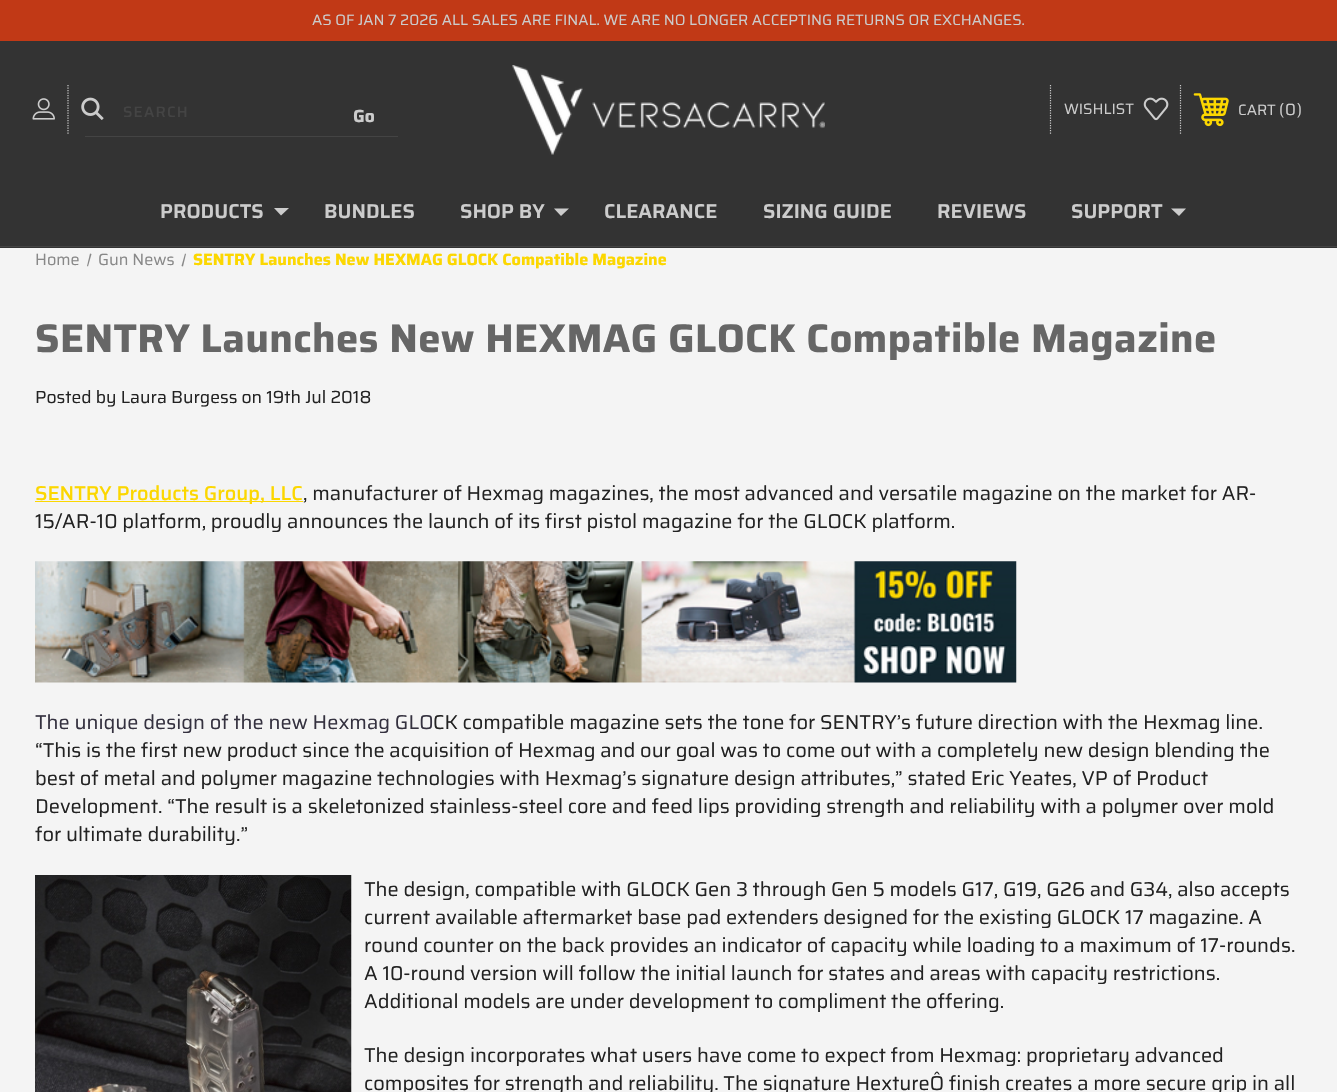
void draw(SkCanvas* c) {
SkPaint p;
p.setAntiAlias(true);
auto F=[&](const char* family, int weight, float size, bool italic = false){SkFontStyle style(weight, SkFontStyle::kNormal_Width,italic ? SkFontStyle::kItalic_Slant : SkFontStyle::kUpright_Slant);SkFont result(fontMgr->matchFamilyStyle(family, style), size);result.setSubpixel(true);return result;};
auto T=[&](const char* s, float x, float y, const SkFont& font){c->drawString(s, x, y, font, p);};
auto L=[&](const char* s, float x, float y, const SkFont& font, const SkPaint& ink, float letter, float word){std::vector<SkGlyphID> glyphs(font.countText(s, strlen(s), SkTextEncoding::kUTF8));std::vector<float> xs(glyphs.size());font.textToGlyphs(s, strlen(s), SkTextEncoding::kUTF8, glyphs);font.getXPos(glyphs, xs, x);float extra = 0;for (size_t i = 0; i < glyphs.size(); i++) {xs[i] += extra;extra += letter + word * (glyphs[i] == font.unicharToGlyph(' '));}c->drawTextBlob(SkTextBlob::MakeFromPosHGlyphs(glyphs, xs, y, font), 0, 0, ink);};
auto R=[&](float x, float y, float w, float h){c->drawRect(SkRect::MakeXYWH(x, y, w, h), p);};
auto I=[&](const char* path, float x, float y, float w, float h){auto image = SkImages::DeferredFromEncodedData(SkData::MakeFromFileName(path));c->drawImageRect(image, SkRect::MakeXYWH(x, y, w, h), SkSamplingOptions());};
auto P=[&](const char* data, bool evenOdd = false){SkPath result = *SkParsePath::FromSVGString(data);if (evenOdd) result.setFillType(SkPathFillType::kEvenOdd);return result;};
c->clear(0xfff4f4f4);
p.setColor(0xff333333);
R(0,41,1337,207);
p.setColor(0xff444444);
R(0,246,1337,1);
p.setColor(0xffc13916);
R(0,0,1337,41);
auto f1 = F("Saira",400,15);
p.setColor(0xffcccccc);
T("AS OF JAN 7 2026 ALL SALES ARE FINAL. WE ARE NO LONGER ACCEPTING RETURNS OR EXCHANGES.",312,25,f1);
I("1.png",32,98,23,22);
p.setStroke(true);
p.setStrokeWidth(1.2);
p.setPathEffect(SkDashPathEffect::Make({{1.25f,1.25f}}, 0));
c->drawPath(P("M68 85v49"),p);
p.setPathEffect(nullptr);
I("2.png",81,97,23,23);
p.setStroke(false);
p.setColor(0xff444444);
R(85,136,313,1);
auto f2 = F("Saira",500,15);
L("SEARCH",123,117,f2,p,1.25,0);
auto f3 = F("Saira",700,17.5);
p.setColor(0xffcccccc);
T("Go",353,122,f3);
I("3.png",512,65,313,90);
p.setStroke(true);
p.setPathEffect(SkDashPathEffect::Make({{1.25f,1.25f}}, 0));
c->drawPath(P("M1180.5 85v49"),p);
p.setPathEffect(nullptr);
p.setPathEffect(SkDashPathEffect::Make({{1.25f,1.25f}}, 0));
c->drawPath(P("M1050.5 85v49"),p);
p.setPathEffect(nullptr);
p.setStroke(false);
T("WISHLIST",1064,114,f1);
I("4.png",1143,97,26,24);
I("5.png",1193,93,36,34);
T("CART",1238,115,f1);
auto f4 = F("Saira",400,16.25);
T("(",1279,115,f4);
T("0",1285,115,f4);
T(")",1297,115,f4);
auto f5 = F("Saira",600,20);
T("PRODUCTS",160,218,f5);
c->drawPath(P("M274 208l7 7.5l8-7.5z"),p);
T("BUNDLES",324,218,f5);
T("SHOP BY",460,218,f5);
c->drawPath(P("M554 208.5l7 7.5l8-7.5z"),p);
T("CLEARANCE",604,218,f5);
T("SIZING GUIDE",763,218,f5);
T("REVIEWS",937,218,f5);
T("SUPPORT",1071,218,f5);
c->drawPath(P("M1171 208.5l8 7.5l7-7.5z"),p);
p.setColor(0xff888888);
T("Home",35,265,f4);
c->drawPath(P("M90 253.5l1.5 .5l-3.5 12.5l-1-.5z"),p);
T("Gun News",98,265,f4);
c->drawPath(P("M185 253.5l1 .5l-3 12.5l-1.5-.5z"),p);
auto f6 = F("Saira",700,16.25);
p.setColor(0xfffcd700);
T("SENTRY Launches New HEXMAG GLOCK Compatible Magazine",193,265,f6);
auto f7 = F("Saira",700,40);
p.setColor(0xff666666);
L("SENTRY Launches New HEXMAG GLOCK Compatible Magazine",35,352,f7,p,.3,0);
auto f8 = F("Saira",400,17.5);
p.setColor(0xff222222);
T("Posted by Laura Burgess on 19th Jul 2018",35,403,f8);
p.setColor(0xfffcd700);
R(35,501,268,1);
auto f9 = F("Saira",500,20);
T("SENTRY Products Group, LLC",35,500,f9);
auto f10 = F("Saira",400,20);
p.setColor(0xff222222);
T(", manufacturer of Hexmag magazines, the most advanced and versatile magazine on the market for AR-",303,500,f10);
T("15/AR-10 platform, proudly announces the launch of its first pistol magazine for the GLOCK platform.",35,528,f10);
I("6.png",35,561,982,122);
p.setColor(0xff34313f);
T("The unique design of the new Hexmag GLO",35,729,f10);
p.setColor(0xff222222);
T("CK compatible magazine sets the tone for SENTRY’s future direction with the Hexmag line.",433,729,f10);
T("“This is the first new product since the acquisition of Hexmag and our goal was to come out with a completely new design blending the",35,757,f10);
T("best of metal and polymer magazine technologies with Hexmag’s signature design attributes,” stated Eric Yeates, VP of Product",35,785,f10);
T("Development. “The result is a skeletonized stainless-steel core and feed lips providing strength and reliability with a polymer over mold",35,813,f10);
T("for ultimate durability.”",35,841,f10);
I("7.png",35,875,317,217);
T("The design, compatible with GLOCK Gen 3 through Gen 5 models G17, G19, G26 and G34, also accepts",364,896,f10);
T("current available aftermarket base pad extenders designed for the existing GLOCK 17 magazine. A",364,924,f10);
T("round counter on the back provides an indicator of capacity while loading to a maximum of 17-rounds.",364,952,f10);
T("A 10-round version will follow the initial launch for states and areas with capacity restrictions.",364,980,f10);
T("Additional models are under development to compliment the offering.",364,1008,f10);
T("The design incorporates what users have come to expect from Hexmag: proprietary advanced",364,1062,f10);
T("composites for strength and reliability. The signature HextureÔ finish creates a more secure grip in all",364,1090,f10);
}
